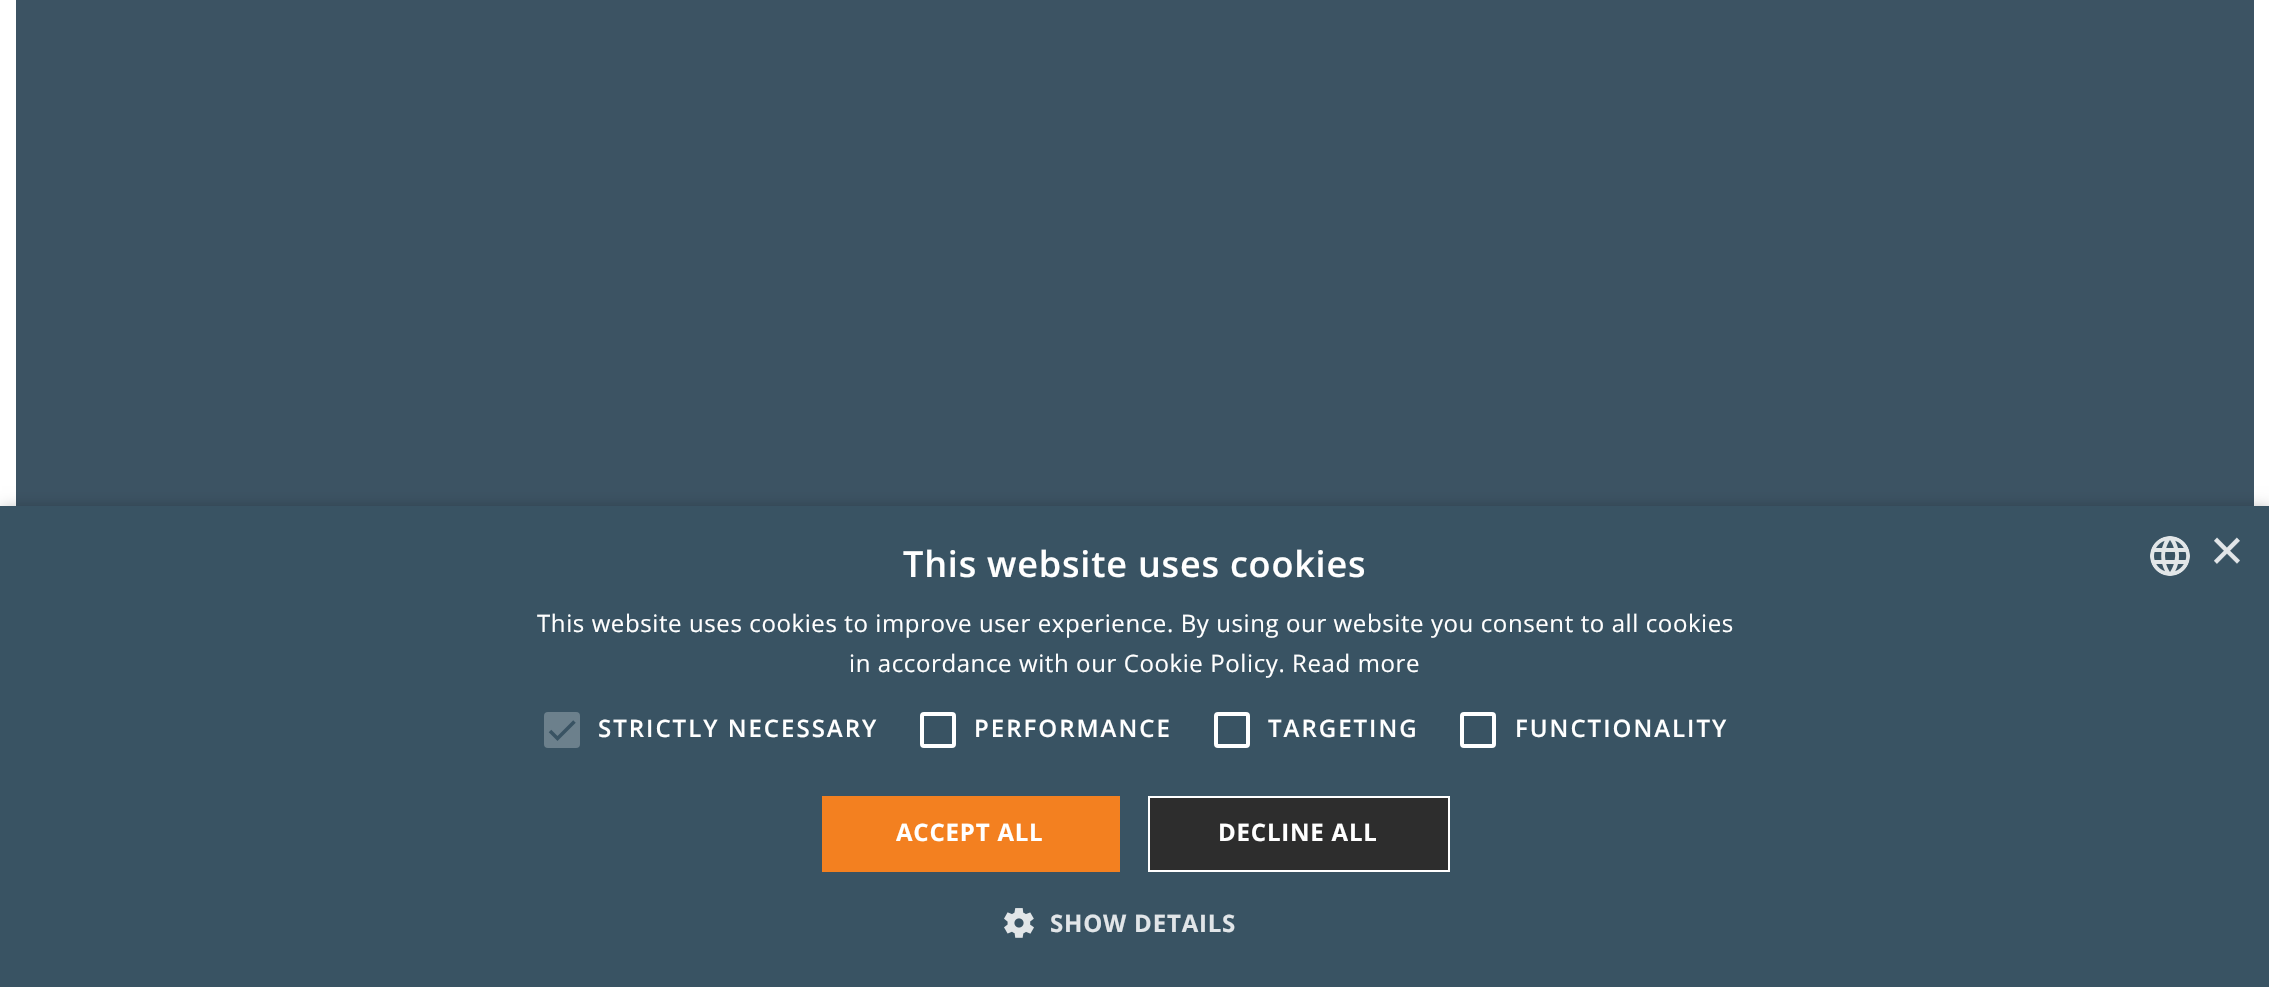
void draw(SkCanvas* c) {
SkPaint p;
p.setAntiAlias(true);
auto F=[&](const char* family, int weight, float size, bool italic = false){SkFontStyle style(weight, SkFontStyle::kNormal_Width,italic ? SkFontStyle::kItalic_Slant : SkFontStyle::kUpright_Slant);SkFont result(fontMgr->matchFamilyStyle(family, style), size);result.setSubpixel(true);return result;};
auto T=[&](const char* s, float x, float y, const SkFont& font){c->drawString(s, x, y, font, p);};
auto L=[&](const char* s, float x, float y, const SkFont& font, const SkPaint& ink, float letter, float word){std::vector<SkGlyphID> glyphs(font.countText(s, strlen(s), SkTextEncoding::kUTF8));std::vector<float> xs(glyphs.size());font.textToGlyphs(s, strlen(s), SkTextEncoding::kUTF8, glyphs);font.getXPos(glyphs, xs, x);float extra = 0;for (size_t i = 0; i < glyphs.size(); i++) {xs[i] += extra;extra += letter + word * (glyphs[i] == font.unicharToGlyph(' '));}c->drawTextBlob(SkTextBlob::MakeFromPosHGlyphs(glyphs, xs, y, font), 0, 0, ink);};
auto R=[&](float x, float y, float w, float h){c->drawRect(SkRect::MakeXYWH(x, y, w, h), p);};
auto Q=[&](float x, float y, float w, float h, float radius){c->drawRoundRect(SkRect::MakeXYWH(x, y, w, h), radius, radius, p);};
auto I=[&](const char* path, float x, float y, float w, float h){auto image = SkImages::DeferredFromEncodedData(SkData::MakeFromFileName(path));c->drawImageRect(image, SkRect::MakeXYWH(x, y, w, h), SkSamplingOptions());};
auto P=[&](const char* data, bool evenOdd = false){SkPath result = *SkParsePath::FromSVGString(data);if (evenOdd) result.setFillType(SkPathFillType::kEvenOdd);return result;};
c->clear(0xffffffff);
p.setColor(0xff3c5363);
R(16,0,2238,506);
p.setColor(0x59000000);
p.setMaskFilter(SkMaskFilter::MakeBlur(kNormal_SkBlurStyle, 8));
c->drawRect(SkRect::MakeXYWH(2,510,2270,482),p);
p.setMaskFilter(nullptr);
p.setColor(0xff395363);
R(0,506,2269,481);
auto f1 = F("Open Sans",600,36);
p.setColor(0xffffffff);
L("This website uses cookies",903,577,f1,p,.8,0);
I("1.png",2150,536,40,40);
auto f2 = F("Liberation Sans",400,58);
p.setColor(0xffe1e5e8);
T("×",2210,570,f2);
auto f3 = F("Open Sans",400,24);
p.setColor(0xffffffff);
L("This website uses cookies to improve user experience. By using our website you consent to all cookies",537,632,f3,p,.6,0);
L("in accordance with our Cookie Policy. Read more",849,672,f3,p,.6,0);
p.setColor(0xff6c808c);
Q(544,712,36,36,4);
p.setStroke(true);
p.setStrokeWidth(3.6);
p.setColor(0xff395363);
c->drawPath(P("M550 731l7.5 7.5l17-17"),p);
auto f4 = F("Open Sans",600,24);
p.setStroke(false);
p.setColor(0xffffffff);
L("STRICTLY NECESSARY",598,737,f4,p,2,0);
p.setStroke(true);
p.setStrokeWidth(4);
c->drawRoundRect(SkRect::MakeXYWH(922,714,32,32),2,2,p);
p.setStroke(false);
L("PERFORMANCE",974,737,f4,p,2,0);
p.setStroke(true);
c->drawRoundRect(SkRect::MakeXYWH(1216,714,32,32),2,2,p);
p.setStroke(false);
L("TARGETING",1268,737,f4,p,2,0);
p.setStroke(true);
c->drawRoundRect(SkRect::MakeXYWH(1462,714,32,32),2,2,p);
p.setStroke(false);
L("FUNCTIONALITY",1515,737,f4,p,2,0);
p.setColor(0xfff38020);
R(822,796,298,76);
auto f5 = F("Open Sans",700,24);
p.setColor(0xffffffff);
L("ACCEPT ALL",896,841,f5,p,.8,0);
p.setColor(0xff2d2d2d);
c->drawRect(SkRect::MakeXYWH(1149,797,300,74),p);
p.setStroke(true);
p.setStrokeWidth(2);
p.setColor(0xffffffff);
c->drawRect(SkRect::MakeXYWH(1149,797,300,74),p);
p.setStroke(false);
L("DECLINE ALL",1218,841,f5,p,.8,0);
I("2.png",1004,908,30,30);
p.setColor(0xffe1e5e8);
L("SHOW DETAILS",1050,932,f5,p,.8,0);
}
